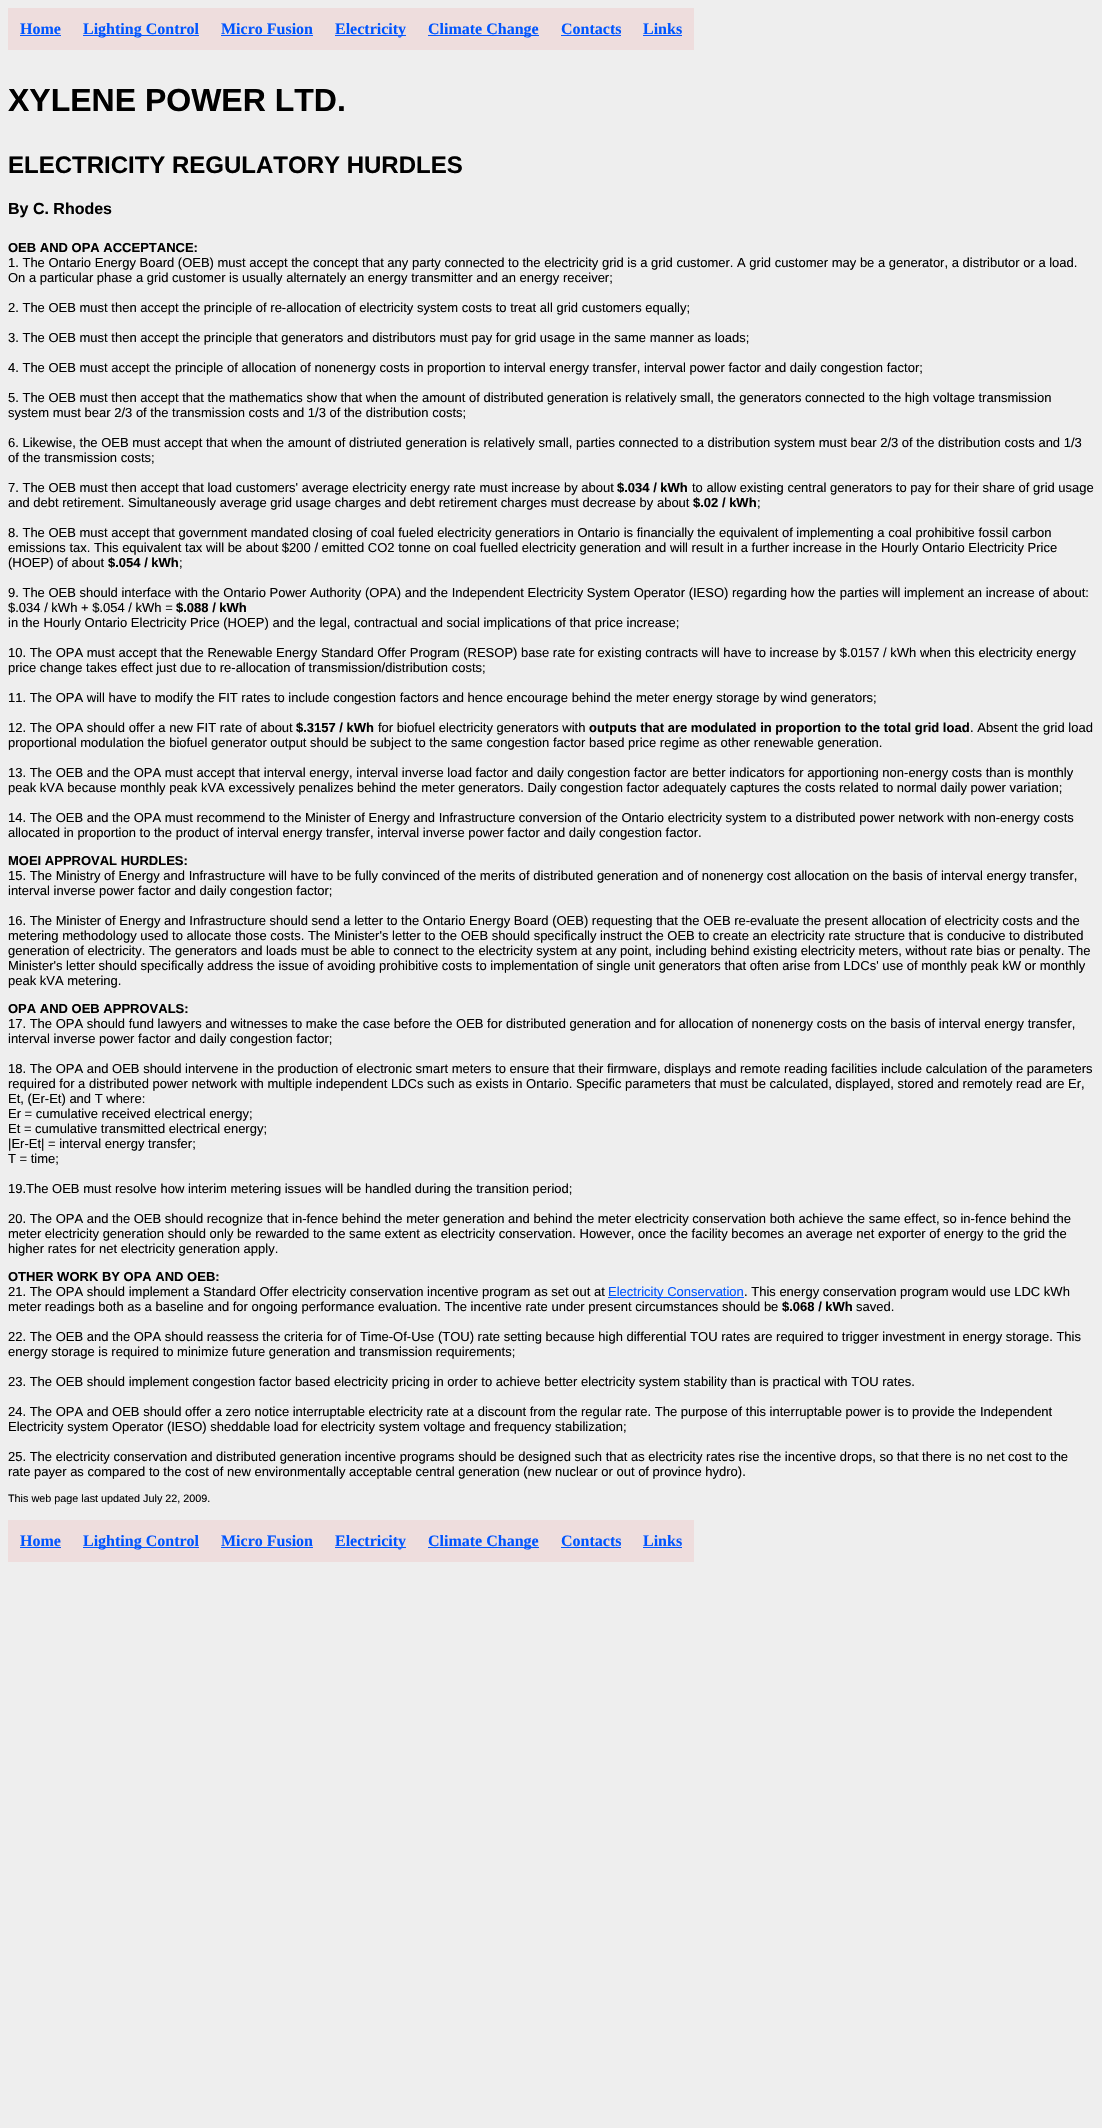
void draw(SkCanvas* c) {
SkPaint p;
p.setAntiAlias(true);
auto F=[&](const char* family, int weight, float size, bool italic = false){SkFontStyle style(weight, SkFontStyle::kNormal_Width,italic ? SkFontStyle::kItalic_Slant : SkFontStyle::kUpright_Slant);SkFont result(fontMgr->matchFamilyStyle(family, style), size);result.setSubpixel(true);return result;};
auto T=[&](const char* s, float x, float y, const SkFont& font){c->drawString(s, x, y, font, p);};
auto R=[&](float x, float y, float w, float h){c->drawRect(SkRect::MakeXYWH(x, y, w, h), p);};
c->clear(0xffeeeeee);
p.setColor(0xffeedddd);
R(8,8,686,42);
auto f1 = F("Liberation Serif",700,16);
p.setColor(0xff0055ff);
T("Home",20,34,f1);
R(20,35,41,1);
R(83,35,116,1);
T("Lighting Control",83,34,f1);
T("Micro Fusion",221,34,f1);
R(221,35,92,1);
R(335,35,71,1);
T("Electricity",335,34,f1);
R(428,35,111,1);
T("Climate Change",428,34,f1);
T("Contacts",561,34,f1);
R(561,35,60,1);
T("Links",643,34,f1);
R(643,35,39,1);
auto f2 = F("Liberation Sans",700,32);
p.setColor(0xff000000);
T("XYLENE POWER LTD.",8,111,f2);
auto f3 = F("Liberation Sans",700,24);
T("ELECTRICITY REGULATORY HURDLES",8,173,f3);
auto f4 = F("Liberation Sans",700,16);
T("By C. Rhodes",8,214,f4);
auto f5 = F("Liberation Sans",700,13);
T("OEB AND OPA ACCEPTANCE:",8,252,f5);
auto f6 = F("Liberation Sans",400,13);
T("1. The Ontario Energy Board (OEB) must accept the concept that any party connected to the electricity grid is a grid customer. A grid customer may be a generator, a distributor or a load.",8,267,f6);
T("On a particular phase a grid customer is usually alternately an energy transmitter and an energy receiver;",8,282,f6);
T("2. The OEB must then accept the principle of re-allocation of electricity system costs to treat all grid customers equally;",8,312,f6);
T("3. The OEB must then accept the principle that generators and distributors must pay for grid usage in the same manner as loads;",8,342,f6);
T("4. The OEB must accept the principle of allocation of nonenergy costs in proportion to interval energy transfer, interval power factor and daily congestion factor;",8,372,f6);
T("5. The OEB must then accept that the mathematics show that when the amount of distributed generation is relatively small, the generators connected to the high voltage transmission",8,402,f6);
T("system must bear 2/3 of the transmission costs and 1/3 of the distribution costs;",8,417,f6);
T("6. Likewise, the OEB must accept that when the amount of distriuted generation is relatively small, parties connected to a distribution system must bear 2/3 of the distribution costs and 1/3",8,447,f6);
T("of the transmission costs;",8,462,f6);
T("7. The OEB must then accept that load customers' average electricity energy rate must increase by about",8,492,f6);
T("$.034 / kWh",617,492,f5);
T("to allow existing central generators to pay for their share of grid usage",692,492,f6);
T("and debt retirement. Simultaneously average grid usage charges and debt retirement charges must decrease by about",8,507,f6);
T("$.02 / kWh",693,507,f5);
T(";",757,507,f6);
T("8. The OEB must accept that government mandated closing of coal fueled electricity generatiors in Ontario is financially the equivalent of implementing a coal prohibitive fossil carbon",8,537,f6);
T("emissions tax. This equivalent tax will be about $200 / emitted CO2 tonne on coal fuelled electricity generation and will result in a further increase in the Hourly Ontario Electricity Price",8,552,f6);
T("(HOEP) of about",8,567,f6);
T("$.054 / kWh",108,567,f5);
T(";",179,567,f6);
T("9. The OEB should interface with the Ontario Power Authority (OPA) and the Independent Electricity System Operator (IESO) regarding how the parties will implement an increase of about:",8,597,f6);
T("$.034 / kWh + $.054 / kWh =",8,612,f6);
T("$.088 / kWh",176,612,f5);
T("in the Hourly Ontario Electricity Price (HOEP) and the legal, contractual and social implications of that price increase;",8,627,f6);
T("10. The OPA must accept that the Renewable Energy Standard Offer Program (RESOP) base rate for existing contracts will have to increase by $.0157 / kWh when this electricity energy",8,657,f6);
T("price change takes effect just due to re-allocation of transmission/distribution costs;",8,672,f6);
T("11. The OPA will have to modify the FIT rates to include congestion factors and hence encourage behind the meter energy storage by wind generators;",8,702,f6);
T("12. The OPA should offer a new FIT rate of about",8,732,f6);
T("$.3157 / kWh",296,732,f5);
T("for biofuel electricity generators with",378,732,f6);
T("outputs that are modulated in proportion to the total grid load",589,732,f5);
T(". Absent the grid load",970,732,f6);
T("proportional modulation the biofuel generator output should be subject to the same congestion factor based price regime as other renewable generation.",8,747,f6);
T("13. The OEB and the OPA must accept that interval energy, interval inverse load factor and daily congestion factor are better indicators for apportioning non-energy costs than is monthly",8,777,f6);
T("peak kVA because monthly peak kVA excessively penalizes behind the meter generators. Daily congestion factor adequately captures the costs related to normal daily power variation;",8,792,f6);
T("14. The OEB and the OPA must recommend to the Minister of Energy and Infrastructure conversion of the Ontario electricity system to a distributed power network with non-energy costs",8,822,f6);
T("allocated in proportion to the product of interval energy transfer, interval inverse power factor and daily congestion factor.",8,837,f6);
T("MOEI APPROVAL HURDLES:",8,865,f5);
T("15. The Ministry of Energy and Infrastructure will have to be fully convinced of the merits of distributed generation and of nonenergy cost allocation on the basis of interval energy transfer,",8,880,f6);
T("interval inverse power factor and daily congestion factor;",8,895,f6);
T("16. The Minister of Energy and Infrastructure should send a letter to the Ontario Energy Board (OEB) requesting that the OEB re-evaluate the present allocation of electricity costs and the",8,925,f6);
T("metering methodology used to allocate those costs. The Minister's letter to the OEB should specifically instruct the OEB to create an electricity rate structure that is conducive to distributed",8,940,f6);
T("generation of electricity. The generators and loads must be able to connect to the electricity system at any point, including behind existing electricity meters, without rate bias or penalty. The",8,955,f6);
T("Minister's letter should specifically address the issue of avoiding prohibitive costs to implementation of single unit generators that often arise from LDCs' use of monthly peak kW or monthly",8,970,f6);
T("peak kVA metering.",8,985,f6);
T("OPA AND OEB APPROVALS:",8,1013,f5);
T("17. The OPA should fund lawyers and witnesses to make the case before the OEB for distributed generation and for allocation of nonenergy costs on the basis of interval energy transfer,",8,1028,f6);
T("interval inverse power factor and daily congestion factor;",8,1043,f6);
T("18. The OPA and OEB should intervene in the production of electronic smart meters to ensure that their firmware, displays and remote reading facilities include calculation of the parameters",8,1073,f6);
T("required for a distributed power network with multiple independent LDCs such as exists in Ontario. Specific parameters that must be calculated, displayed, stored and remotely read are Er,",8,1088,f6);
T("Et, (Er-Et) and T where:",8,1103,f6);
T("Er = cumulative received electrical energy;",8,1118,f6);
T("Et = cumulative transmitted electrical energy;",8,1133,f6);
T("|Er-Et| = interval energy transfer;",8,1148,f6);
T("T = time;",8,1163,f6);
T("19.The OEB must resolve how interim metering issues will be handled during the transition period;",8,1193,f6);
T("20. The OPA and the OEB should recognize that in-fence behind the meter generation and behind the meter electricity conservation both achieve the same effect, so in-fence behind the",8,1223,f6);
T("meter electricity generation should only be rewarded to the same extent as electricity conservation. However, once the facility becomes an average net exporter of energy to the grid the",8,1238,f6);
T("higher rates for net electricity generation apply.",8,1253,f6);
T("OTHER WORK BY OPA AND OEB:",8,1281,f5);
T("21. The OPA should implement a Standard Offer electricity conservation incentive program as set out at",8,1296,f6);
p.setColor(0xff0055ff);
R(608,1297,136,1);
T("Electricity Conservation",608,1296,f6);
p.setColor(0xff000000);
T(". This energy conservation program would use LDC kWh",744,1296,f6);
T("meter readings both as a baseline and for ongoing performance evaluation. The incentive rate under present circumstances should be",8,1311,f6);
T("$.068 / kWh",782,1311,f5);
T("saved.",856,1311,f6);
T("22. The OEB and the OPA should reassess the criteria for of Time-Of-Use (TOU) rate setting because high differential TOU rates are required to trigger investment in energy storage. This",8,1341,f6);
T("energy storage is required to minimize future generation and transmission requirements;",8,1356,f6);
T("23. The OEB should implement congestion factor based electricity pricing in order to achieve better electricity system stability than is practical with TOU rates.",8,1386,f6);
T("24. The OPA and OEB should offer a zero notice interruptable electricity rate at a discount from the regular rate. The purpose of this interruptable power is to provide the Independent",8,1416,f6);
T("Electricity system Operator (IESO) sheddable load for electricity system voltage and frequency stabilization;",8,1431,f6);
T("25. The electricity conservation and distributed generation incentive programs should be designed such that as electricity rates rise the incentive drops, so that there is no net cost to the",8,1461,f6);
T("rate payer as compared to the cost of new environmentally acceptable central generation (new nuclear or out of province hydro).",8,1476,f6);
auto f7 = F("Liberation Sans",400,10.8);
T("This web page last updated July 22, 2009.",8,1502,f7);
p.setColor(0xffeedddd);
R(8,1520,686,42);
p.setColor(0xff0055ff);
T("Home",20,1546,f1);
R(20,1547,41,1);
R(83,1547,116,1);
T("Lighting Control",83,1546,f1);
T("Micro Fusion",221,1546,f1);
R(221,1547,92,1);
R(335,1547,71,1);
T("Electricity",335,1546,f1);
R(428,1547,111,1);
T("Climate Change",428,1546,f1);
T("Contacts",561,1546,f1);
R(561,1547,60,1);
T("Links",643,1546,f1);
R(643,1547,39,1);
}
